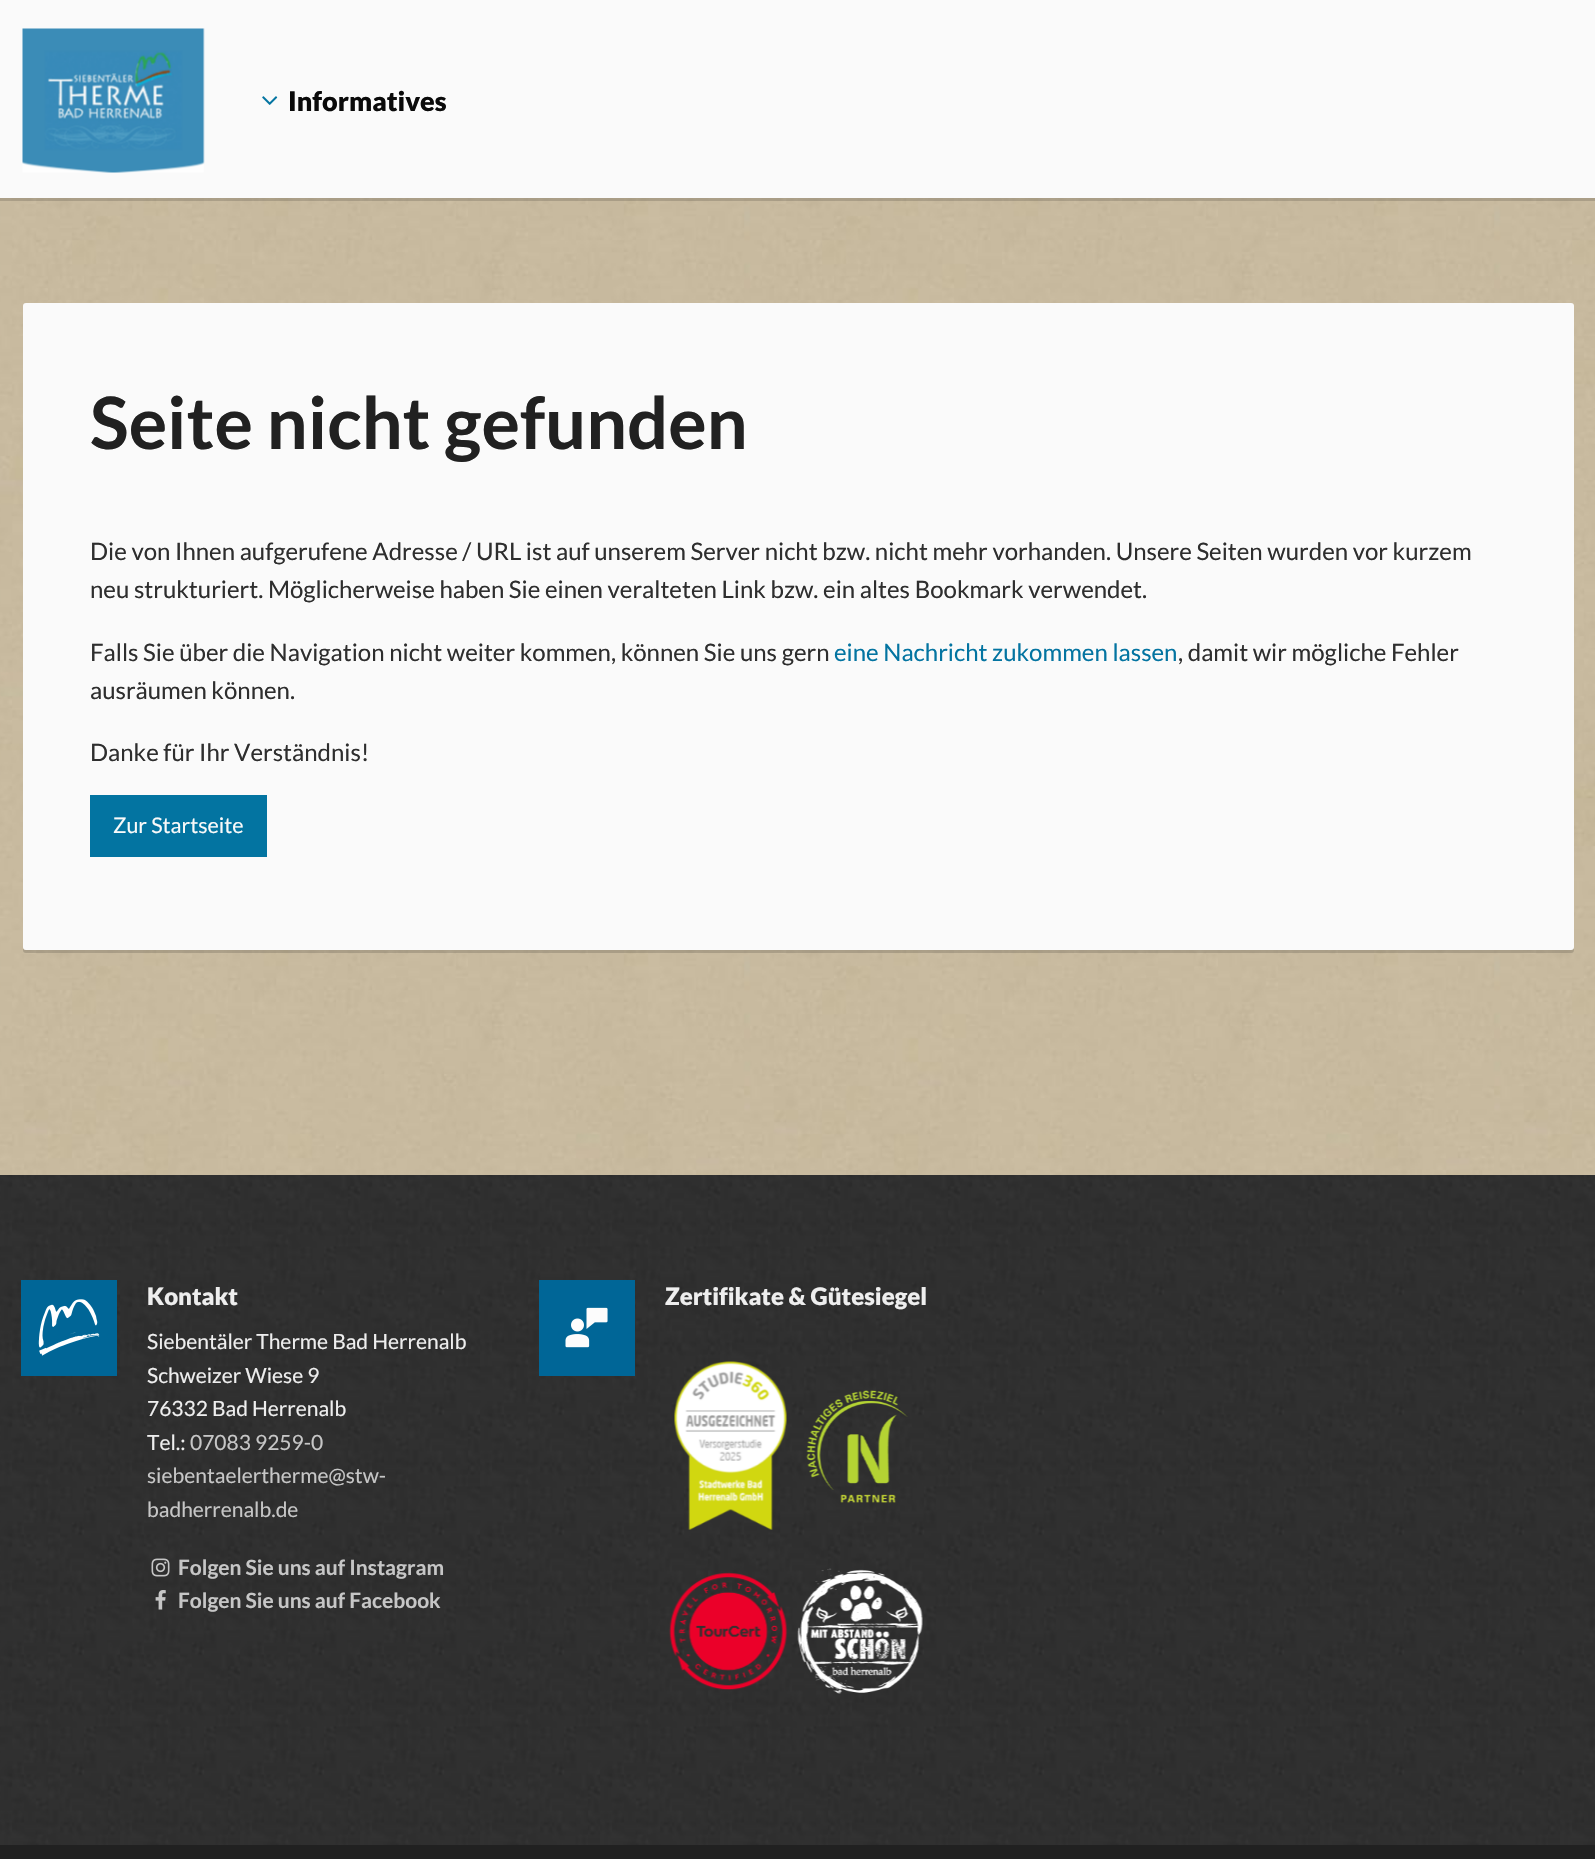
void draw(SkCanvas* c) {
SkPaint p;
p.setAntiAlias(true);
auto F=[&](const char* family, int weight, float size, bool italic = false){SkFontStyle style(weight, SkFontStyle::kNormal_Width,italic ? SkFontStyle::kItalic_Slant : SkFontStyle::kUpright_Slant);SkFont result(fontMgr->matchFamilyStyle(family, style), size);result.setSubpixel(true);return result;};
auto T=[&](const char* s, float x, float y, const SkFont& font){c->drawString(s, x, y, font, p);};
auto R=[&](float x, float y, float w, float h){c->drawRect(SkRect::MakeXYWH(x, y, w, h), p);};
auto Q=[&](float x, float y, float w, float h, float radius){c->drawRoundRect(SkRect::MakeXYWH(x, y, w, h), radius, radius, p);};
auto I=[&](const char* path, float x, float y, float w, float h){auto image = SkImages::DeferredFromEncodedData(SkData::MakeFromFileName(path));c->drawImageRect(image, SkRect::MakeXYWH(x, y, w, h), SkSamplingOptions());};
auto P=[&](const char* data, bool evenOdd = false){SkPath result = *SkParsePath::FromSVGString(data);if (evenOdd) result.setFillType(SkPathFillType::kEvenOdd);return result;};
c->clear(0xffffffff);
I("1.png",0,198,1595,977);
p.setColor(0x26000000);
R(0,198,1595,3);
p.setColor(0xfffafafa);
R(0,0,1595,198);
I("2.png",22,28,183,145);
I("3.png",262,96,16,9);
auto f1 = F("Lato",900,27);
p.setColor(0xff0a0a0a);
T("Informatives",288,111,f1);
p.setColor(0x26000000);
c->drawPath(P("M23 948v2c0 2 1 3 3 3h1545c2 0 3-1 3-3v-641v-2v639c0 2-2 4-4 4h-1544c-2 0-2-1-3-2z"),p);
p.setColor(0xfffafafa);
Q(23,303,1551,647,3);
auto f2 = F("Lato",700,72);
p.setColor(0xff212121);
T("Seite nicht gefunden",90,449,f2);
auto f3 = F("Lato",400,24);
p.setColor(0xff2e2e2e);
T("Die von Ihnen aufgerufene Adresse / URL ist auf unserem Server nicht bzw. nicht mehr vorhanden. Unsere Seiten wurden vor kurzem",90,560,f3);
T("neu strukturiert. Möglicherweise haben Sie einen veralteten Link bzw. ein altes Bookmark verwendet.",90,598,f3);
T("Falls Sie über die Navigation nicht weiter kommen, können Sie uns gern",90,661,f3);
p.setColor(0xff0374a1);
T("eine Nachricht zukommen lassen",834,661,f3);
p.setColor(0xff2e2e2e);
T(", damit wir mögliche Fehler",1178,661,f3);
T("ausräumen können.",90,699,f3);
T("Danke für Ihr Verständnis!",90,761,f3);
p.setColor(0xff0374a1);
R(90,795,177,62);
auto f4 = F("Lato",400,21.5);
p.setColor(0xfffafafa);
T("Zur Startseite",113,833,f4);
I("4.png",0,1175,1595,670);
p.setColor(0xff006697);
R(21,1280,96,96);
I("5.png",38,1299,62,57);
auto f5 = F("Lato",900,24);
p.setColor(0xffeeeeee);
T("Kontakt",147,1305,f5);
auto f6 = F("Lato",400,21);
T("Siebentäler Therme Bad Herrenalb",147,1349,f6);
T("Schweizer Wiese 9",147,1383,f6);
T("76332 Bad Herrenalb",147,1416,f6);
T("Tel.:",147,1450,f6);
p.setColor(0xffc6c6c6);
T("07083 9259-0",190,1450,f6);
T("siebentaelertherme@stw-",147,1483,f6);
T("badherrenalb.de",147,1517,f6);
I("6.png",151,1558,19,19);
auto f7 = F("Lato",700,21);
T("Folgen Sie uns auf Instagram",178,1575,f7);
I("7.png",155,1590,11,20);
T("Folgen Sie uns auf Facebook",178,1608,f7);
p.setColor(0xff006697);
R(539,1280,96,96);
I("8.png",565,1307,43,41);
p.setColor(0xffeeeeee);
T("Zertifikate & Gütesiegel",665,1305,f5);
I("9.png",674,1361,113,169);
I("10.png",806,1390,102,113);
I("11.png",669,1572,119,118);
I("12.png",797,1568,126,126);
p.setColor(0xff212121);
R(0,1845,1595,14);
}
